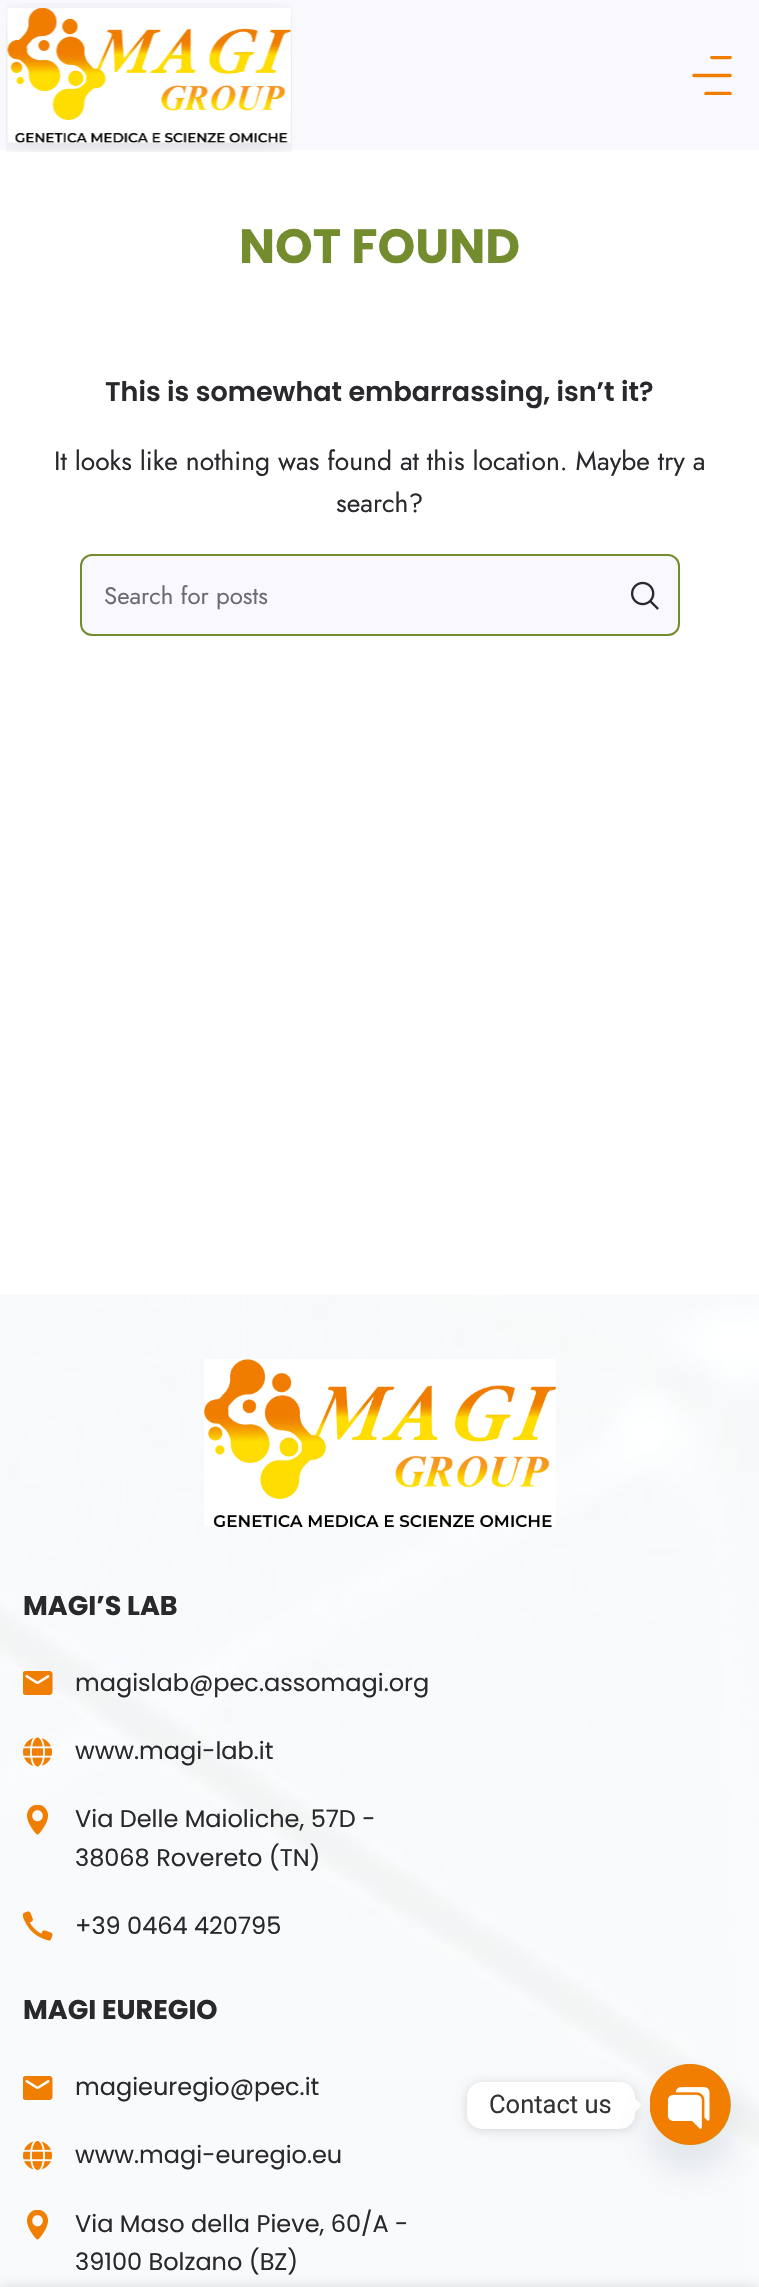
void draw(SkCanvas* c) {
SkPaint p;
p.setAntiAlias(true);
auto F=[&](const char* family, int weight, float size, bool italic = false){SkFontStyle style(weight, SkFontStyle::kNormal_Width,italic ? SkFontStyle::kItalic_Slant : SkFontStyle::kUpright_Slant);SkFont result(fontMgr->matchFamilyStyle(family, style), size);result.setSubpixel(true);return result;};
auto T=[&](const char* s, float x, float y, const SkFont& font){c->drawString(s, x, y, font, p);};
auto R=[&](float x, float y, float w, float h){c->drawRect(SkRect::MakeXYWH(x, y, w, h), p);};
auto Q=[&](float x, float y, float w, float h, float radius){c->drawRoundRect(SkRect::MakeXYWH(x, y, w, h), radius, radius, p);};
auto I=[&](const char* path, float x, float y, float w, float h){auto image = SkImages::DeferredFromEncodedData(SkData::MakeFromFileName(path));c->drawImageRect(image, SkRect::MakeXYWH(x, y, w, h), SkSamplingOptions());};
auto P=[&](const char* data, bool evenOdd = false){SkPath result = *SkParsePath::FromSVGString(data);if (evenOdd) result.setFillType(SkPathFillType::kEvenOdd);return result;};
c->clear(0xffffffff);
p.setColor(0xfff9f9fd);
R(0,0,759,150);
I("1.png",6,3,286,149);
p.setStroke(true);
p.setStrokeWidth(3.6);
p.setStrokeCap(SkPaint::kRound_Cap);
p.setColor(0xfff07e00);
c->drawPath(P("M730 75.5h-36"),p);
c->save();
c->clipRect(SkRect::MakeXYWH(692,56,40,39));
c->drawPath(P("M730 57.5h-18m18 36h-24"),p);
c->restore();
auto f1 = F("Poppins",700,48);
p.setStroke(false);
p.setColor(0xff738c2e);
T("NOT FOUND",239,263,f1);
auto f2 = F("Poppins",600,27);
p.setColor(0xff29292d);
T("This is somewhat embarrassing, isn’t it?",105,401,f2);
auto f3 = F("Jost",400,26.4);
T("It looks like nothing was found at this location. Maybe try a",54,470,f3);
T("search?",336,512,f3);
p.setColor(0xfff9f9fd);
c->drawRoundRect(SkRect::MakeXYWH(81,555,598,80),11,11,p);
p.setStroke(true);
p.setStrokeWidth(2);
p.setStrokeCap(SkPaint::kButt_Cap);
p.setColor(0xff738c2e);
c->drawRoundRect(SkRect::MakeXYWH(81,555,598,80),11,11,p);
auto f4 = F("Jost",400,24);
p.setStroke(false);
p.setColor(0xff6c6c70);
T("Search for posts",104,604,f4);
I("2.png",630,581,29,29);
I("3.png",0,1294,759,993);
I("4.png",204,1359,352,168);
auto f5 = F("Poppins",700,27);
p.setColor(0xff29292d);
T("MAGI’S LAB",23,1615,f5);
I("5.png",23,1671,30,24);
auto f6 = F("Poppins",400,24);
T("magislab@pec.assomagi.org",75,1691,f6);
I("6.png",23,1737,29,30);
T("www.magi-lab.it",75,1759,f6);
I("7.png",27,1805,21,30);
T("Via Delle Maioliche, 57D -",75,1827,f6);
T("38068 Rovereto (TN)",75,1866,f6);
I("8.png",23,1911,30,30);
T("+39 0464 420795",75,1934,f6);
T("MAGI EUREGIO",23,2019,f5);
I("9.png",23,2076,30,24);
T("magieuregio@pec.it",75,2095,f6);
I("10.png",23,2141,29,29);
T("www.magi-euregio.eu",75,2163,f6);
I("11.png",27,2210,21,30);
T("Via Maso della Pieve, 60/A -",75,2232,f6);
T("39100 Bolzano (BZ)",75,2270,f6);
p.setColor(0x26000000);
p.setMaskFilter(SkMaskFilter::MakeBlur(kNormal_SkBlurStyle, 6));
c->drawRoundRect(SkRect::MakeXYWH(467,2084,168,46),15,15,p);
p.setMaskFilter(nullptr);
p.setColor(0xffffffff);
Q(467,2082,168,47,15);
auto f7 = F("Roboto",400,25.5);
p.setColor(0xff333333);
T("Contact us",489,2113,f7);
p.setColor(0xffffffff);
c->drawPath(P("M634.5 2113v-15l7.5 7z"),p);
p.setColor(0x2949687e);
p.setMaskFilter(SkMaskFilter::MakeBlur(kNormal_SkBlurStyle, 18));
c->drawRoundRect(SkRect::MakeXYWH(650,2088,81,81),40.5,40.5,p);
p.setMaskFilter(nullptr);
p.setColor(0xff86cd91);
c->drawCircle(690.5,2104.5,40.5,p);
I("12.png",650,2064,81,81);
p.setColor(0x24000000);
p.setMaskFilter(SkMaskFilter::MakeBlur(kNormal_SkBlurStyle, 7));
c->drawRect(SkRect::MakeXYWH(0,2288,759,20),p);
p.setMaskFilter(nullptr);
}
